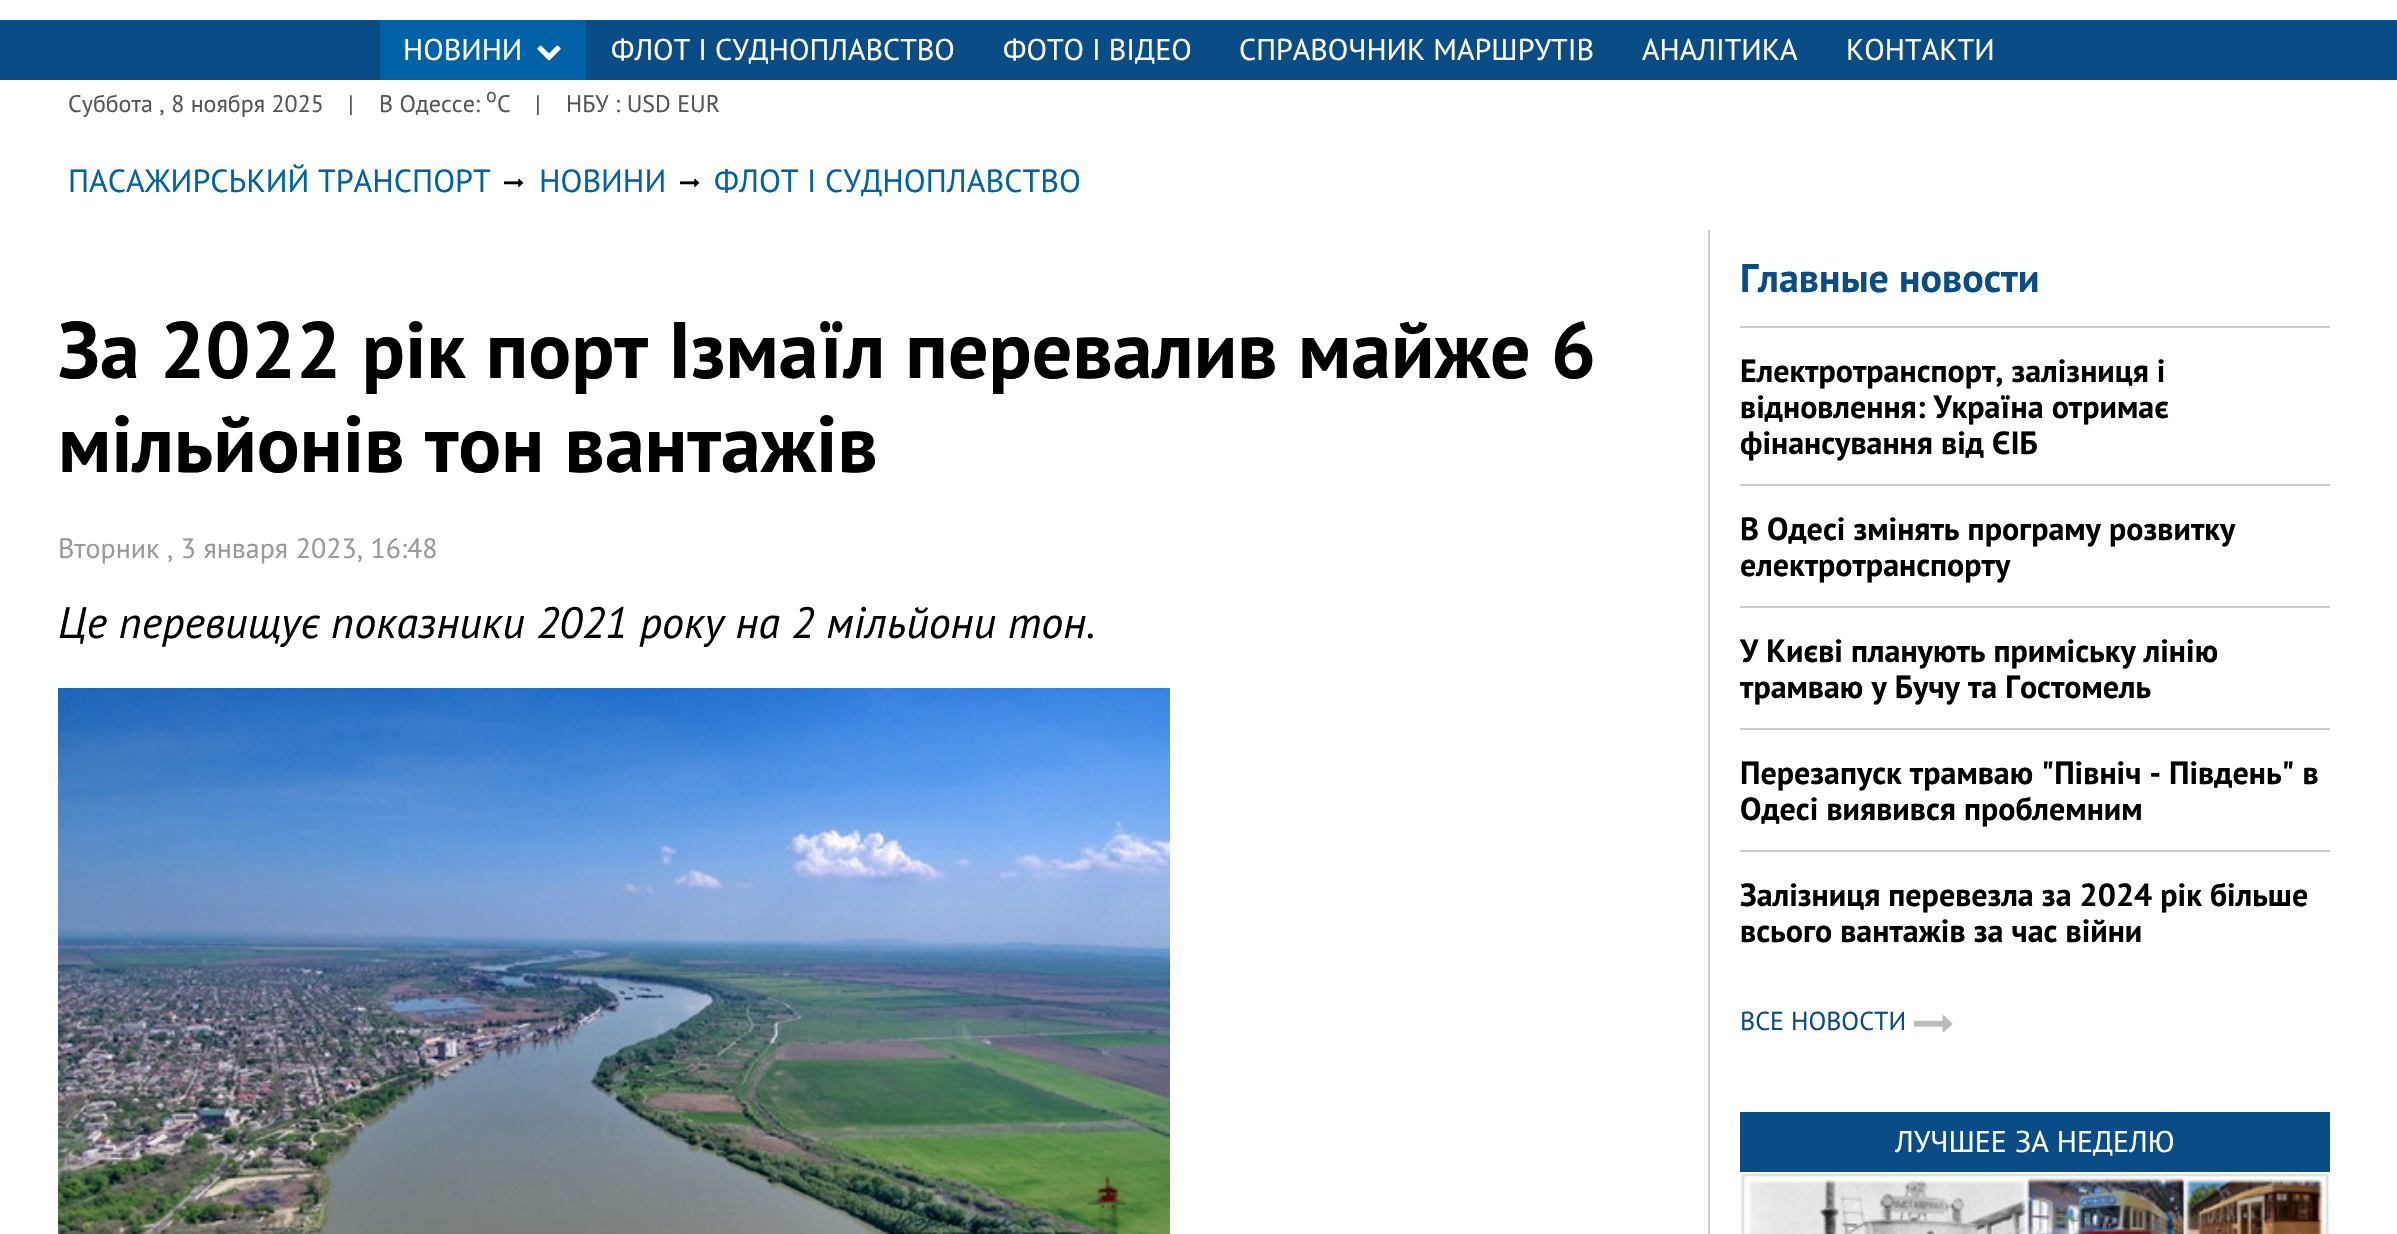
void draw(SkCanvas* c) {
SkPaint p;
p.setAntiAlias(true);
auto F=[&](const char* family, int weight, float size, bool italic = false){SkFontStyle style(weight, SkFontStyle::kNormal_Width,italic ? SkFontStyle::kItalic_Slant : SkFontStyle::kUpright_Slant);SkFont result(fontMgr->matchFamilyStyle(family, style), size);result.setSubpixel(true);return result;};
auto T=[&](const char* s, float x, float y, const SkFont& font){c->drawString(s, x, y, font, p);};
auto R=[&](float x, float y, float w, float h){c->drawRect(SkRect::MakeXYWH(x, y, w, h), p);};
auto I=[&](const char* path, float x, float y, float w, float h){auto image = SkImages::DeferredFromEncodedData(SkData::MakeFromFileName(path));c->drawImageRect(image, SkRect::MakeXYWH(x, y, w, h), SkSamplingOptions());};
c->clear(0xffffffff);
p.setColor(0xff0a4c85);
R(0,20,2397,60);
p.setColor(0xff0062a6);
R(380,20,206,60);
auto f1 = F("PT Sans",400,30);
p.setColor(0xffffffff);
T("НОВИНИ",403,60,f1);
I("1.png",537,45,24,16);
T("ФЛОТ І СУДНОПЛАВСТВО",611,60,f1);
T("ФОТО І ВІДЕО",1003,60,f1);
T("СПРАВОЧНИК МАРШРУТІВ",1239,60,f1);
T("АНАЛІТИКА",1642,60,f1);
T("КОНТАКТИ",1846,60,f1);
auto f2 = F("PT Sans",400,24);
p.setColor(0xff555555);
T("Суббота , 8 ноября 2025",68,112,f2);
T("|",348,112,f2);
T("В Одессе:",379,112,f2);
auto f3 = F("PT Sans",400,20);
T("о",486,102,f3);
T("С",497,112,f2);
T("|",535,112,f2);
T("НБУ : USD EUR",566,112,f2);
auto f4 = F("PT Sans",400,32);
p.setColor(0xff0062a6);
T("ПАСАЖИРСЬКИЙ ТРАНСПОРТ",68,192,f4);
I("2.png",504,178,20,10);
T("НОВИНИ",539,192,f4);
I("2.png",680,178,20,10);
T("ФЛОТ І СУДНОПЛАВСТВО",714,192,f4);
p.setColor(0xffcccccc);
R(1708,230,2,1004);
auto f5 = F("PT Sans",700,80);
p.setColor(0xff000000);
T("За 2022 рік порт Ізмаїл перевалив майже 6",58,378,f5);
T("мільйонів тон вантажів",58,472,f5);
auto f6 = F("PT Sans",400,28);
p.setColor(0xff999999);
T("Вторник , 3 января 2023, 16:48",58,558,f6);
auto f7 = F("PT Sans",400,44,true);
p.setColor(0xff000000);
T("Це перевищує показники 2021 року на 2 мільйони тон.",58,638,f7);
I("3.png",58,688,1112,546);
auto f8 = F("PT Sans",700,40);
p.setColor(0xff0a4c85);
T("Главные новости",1740,292,f8);
p.setColor(0xffcccccc);
R(1740,326,590,2);
auto f9 = F("PT Sans",700,32);
p.setColor(0xff000000);
T("Електротранспорт, залізниця і",1740,382,f9);
T("відновлення: Україна отримає",1740,418,f9);
T("фінансування від ЄІБ",1740,454,f9);
p.setColor(0xffcccccc);
R(1740,484,590,2);
p.setColor(0xff000000);
T("В Одесі змінять програму розвитку",1740,540,f9);
T("електротранспорту",1740,576,f9);
p.setColor(0xffcccccc);
R(1740,606,590,2);
p.setColor(0xff000000);
T("У Києві планують приміську лінію",1740,662,f9);
T("трамваю у Бучу та Гостомель",1740,698,f9);
p.setColor(0xffcccccc);
R(1740,728,590,2);
p.setColor(0xff000000);
T("Перезапуск трамваю \"Північ - Південь\" в",1740,784,f9);
T("Одесі виявився проблемним",1740,820,f9);
p.setColor(0xffcccccc);
R(1740,850,590,2);
p.setColor(0xff000000);
T("Залізниця перевезла за 2024 рік більше",1740,906,f9);
T("всього вантажів за час війни",1740,942,f9);
auto f10 = F("PT Sans",400,26);
p.setColor(0xff0a4c85);
T("ВСЕ НОВОСТИ",1740,1030,f10);
I("4.png",1914,1015,39,18);
R(1740,1112,590,60);
p.setColor(0xffffffff);
T("ЛУЧШЕЕ ЗА НЕДЕЛЮ",1895,1152,f1);
I("5.png",1740,1172,590,62);
}
